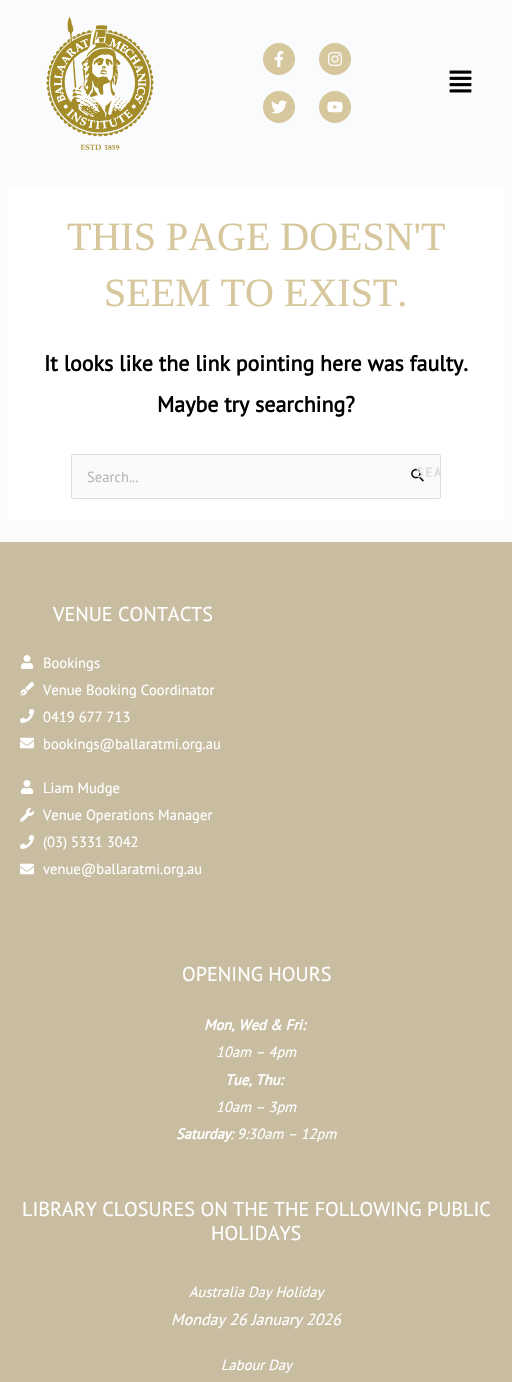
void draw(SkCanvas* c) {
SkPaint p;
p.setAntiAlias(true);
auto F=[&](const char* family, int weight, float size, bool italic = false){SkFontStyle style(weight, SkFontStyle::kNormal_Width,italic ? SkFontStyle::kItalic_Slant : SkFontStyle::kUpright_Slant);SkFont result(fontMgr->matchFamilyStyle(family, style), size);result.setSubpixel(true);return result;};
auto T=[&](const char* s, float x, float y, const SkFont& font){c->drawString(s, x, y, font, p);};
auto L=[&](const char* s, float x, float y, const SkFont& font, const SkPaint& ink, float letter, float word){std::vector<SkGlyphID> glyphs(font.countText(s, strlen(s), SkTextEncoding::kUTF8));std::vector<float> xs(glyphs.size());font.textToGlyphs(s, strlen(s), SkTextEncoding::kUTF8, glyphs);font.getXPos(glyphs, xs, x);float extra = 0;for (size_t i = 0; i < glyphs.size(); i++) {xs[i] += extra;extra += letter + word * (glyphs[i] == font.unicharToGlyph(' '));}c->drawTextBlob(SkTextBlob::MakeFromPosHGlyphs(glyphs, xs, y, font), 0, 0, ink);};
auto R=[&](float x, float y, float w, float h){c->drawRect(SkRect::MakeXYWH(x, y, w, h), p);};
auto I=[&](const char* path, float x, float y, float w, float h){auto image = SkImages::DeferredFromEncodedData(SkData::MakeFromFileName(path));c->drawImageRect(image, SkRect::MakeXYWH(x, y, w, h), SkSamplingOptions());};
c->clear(0xfffafbfc);
I("1.png",46,17,108,133);
p.setColor(0xffd7c79d);
c->drawCircle(279,59,16,p);
I("2.png",274,51,10,16);
c->drawCircle(335,59,16,p);
I("3.png",328,52,14,14);
c->drawCircle(279,107,16,p);
I("4.png",271,100,16,14);
c->drawCircle(335,107,16,p);
I("5.png",327,101,16,12);
I("6.png",449,70,23,23);
p.setColor(0xffffffff);
R(8,187,496,334);
auto f1 = F("Liberation Serif",400,40);
p.setColor(0xffd7c79d);
T("THIS PAGE DOESN'T",67,250,f1);
T("SEEM TO EXIST.",104,306,f1);
auto f2 = F("PT Sans",700,21.9);
p.setColor(0xff000000);
T("It looks like the link pointing here was faulty.",44,371,f2);
T("Maybe try searching?",157,412,f2);
p.setColor(0xfffafafa);
c->drawRoundRect(SkRect::MakeXYWH(71.5,454.5,369,44),1.5,1.5,p);
p.setStroke(true);
p.setStrokeWidth(1);
p.setColor(0xffdddddd);
c->drawRoundRect(SkRect::MakeXYWH(71.5,454.5,369,44),1.5,1.5,p);
I("7.png",411,468,13,14);
auto f3 = F("PT Sans",700,13);
p.setStroke(false);
p.setColor(0xffdcdcdc);
L("SEA",416,477,f3,p,2,0);
auto f4 = F("PT Sans",400,14.6);
p.setColor(0xffb8b8b8);
T("Search...",87,482,f4);
p.setColor(0xffc8bda1);
R(0,542,512,840);
auto f5 = F("PT Sans",400,20.1);
p.setColor(0xffffffff);
T("VENUE CONTACTS",53,621,f5);
I("8.png",20,655,14,14);
T("Bookings",43,668,f4);
I("9.png",20,682,14,14);
T("Venue Booking Coordinator",43,695,f4);
I("10.png",20,709,14,14);
T("0419 677 713",43,722,f4);
I("11.png",20,737,14,12);
T("bookings@ballaratmi.org.au",43,749,f4);
I("8.png",20,780,14,14);
T("Liam Mudge",43,793,f4);
I("12.png",20,808,14,14);
T("Venue Operations Manager",43,820,f4);
I("10.png",20,835,14,14);
T("(03) 5331 3042",43,847,f4);
I("11.png",20,863,14,12);
T("venue@ballaratmi.org.au",43,874,f4);
T("OPENING HOURS",182,981,f5);
auto f6 = F("PT Sans",700,14.6,true);
T("Mon, Wed & Fri:",204,1030,f6);
auto f7 = F("PT Sans",400,14.6,true);
T("10am – 4pm",216,1057,f7);
T("Tue, Thu:",225,1085,f6);
T("10am – 3pm",216,1112,f7);
T("Saturday",176,1139,f6);
T(": 9:30am – 12pm",230,1139,f7);
T("LIBRARY CLOSURES ON THE THE FOLLOWING PUBLIC",22,1216,f5);
T("HOLIDAYS",211,1240,f5);
T("Australia Day Holiday",189,1297,f7);
auto f8 = F("PT Sans",400,16,true);
T("Monday 26 January 2026",171,1325,f8);
T("Labour Day",221,1370,f7);
}
